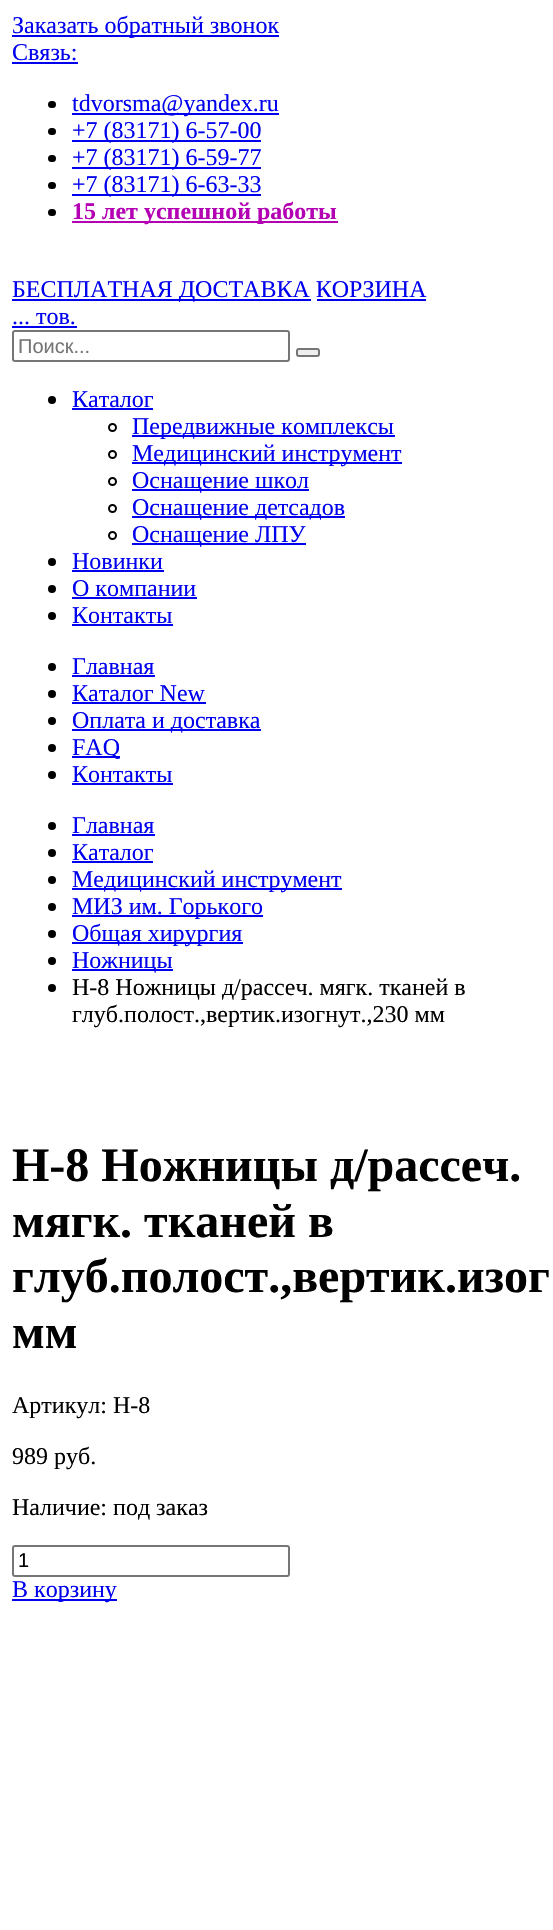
void draw(SkCanvas* c) {
SkPaint p;
p.setAntiAlias(true);
auto F=[&](const char* family, int weight, float size, bool italic = false){SkFontStyle style(weight, SkFontStyle::kNormal_Width,italic ? SkFontStyle::kItalic_Slant : SkFontStyle::kUpright_Slant);SkFont result(fontMgr->matchFamilyStyle(family, style), size);result.setSubpixel(true);return result;};
auto T=[&](const char* s, float x, float y, const SkFont& font){c->drawString(s, x, y, font, p);};
auto R=[&](float x, float y, float w, float h){c->drawRect(SkRect::MakeXYWH(x, y, w, h), p);};
auto Q=[&](float x, float y, float w, float h, float radius){c->drawRoundRect(SkRect::MakeXYWH(x, y, w, h), radius, radius, p);};
c->clear(0xffffffff);
p.setColor(0xff0000ee);
R(12,35,267,2);
auto f1 = F("Liberation Serif",400,24);
T("Заказать обратный звонок",12,33,f1);
T("Связь:",12,60,f1);
R(12,62,66,2);
p.setColor(0xff000000);
Q(48,101,8,7,3.5);
p.setColor(0xff0000ee);
R(72,113,207,2);
T("tdvorsma@yandex.ru",72,111,f1);
p.setColor(0xff000000);
Q(48,128,8,7,3.5);
p.setColor(0xff0000ee);
R(72,140,189,2);
T("+7 (83171) 6-57-00",72,138,f1);
p.setColor(0xff000000);
Q(48,155,8,7,3.5);
p.setColor(0xff0000ee);
R(72,167,189,2);
T("+7 (83171) 6-59-77",72,165,f1);
p.setColor(0xff000000);
Q(48,182,8,7,3.5);
p.setColor(0xff0000ee);
R(72,194,189,2);
T("+7 (83171) 6-63-33",72,192,f1);
p.setColor(0xff000000);
Q(48,209,8,7,3.5);
p.setColor(0xffb300b3);
R(72,221,266,2);
auto f2 = F("Liberation Serif",700,24);
T("15 лет успешной работы",72,219,f2);
p.setColor(0xff0000ee);
R(12,299,299,2);
T("БЕСПЛАТНАЯ ДОСТАВКА КОРЗИНА",12,297,f1);
R(317,299,109,2);
T("... тов.",12,324,f1);
R(12,326,65,2);
p.setStroke(true);
p.setStrokeWidth(2);
p.setColor(0xff767676);
c->drawRoundRect(SkRect::MakeXYWH(13,331,276,30),2,2,p);
auto f3 = F("Liberation Sans",400,20);
p.setStroke(false);
p.setColor(0xff757575);
T("Поиск...",18,353,f3);
p.setColor(0xffefefef);
c->drawRoundRect(SkRect::MakeXYWH(297,349,22,7),2,2,p);
p.setStroke(true);
p.setColor(0xff767676);
c->drawRoundRect(SkRect::MakeXYWH(297,349,22,7),2,2,p);
p.setStroke(false);
p.setColor(0xff000000);
c->drawCircle(52,400,4,p);
p.setColor(0xff0000ee);
T("Каталог",72,407,f1);
R(72,408,81,2);
p.setStroke(true);
p.setColor(0xff000000);
c->drawCircle(112.5,427.5,3.5,p);
p.setStroke(false);
p.setColor(0xff0000ee);
R(132,435,263,2);
T("Передвижные комплексы",132,434,f1);
p.setStroke(true);
p.setColor(0xff000000);
c->drawCircle(112.5,454.5,3.5,p);
p.setStroke(false);
p.setColor(0xff0000ee);
R(132,462,270,2);
T("Медицинский инструмент",132,461,f1);
p.setStroke(true);
p.setColor(0xff000000);
c->drawCircle(112.5,481.5,3.5,p);
p.setStroke(false);
p.setColor(0xff0000ee);
R(132,489,177,2);
T("Оснащение школ",132,488,f1);
p.setStroke(true);
p.setColor(0xff000000);
c->drawCircle(112.5,508.5,3.5,p);
p.setStroke(false);
p.setColor(0xff0000ee);
R(132,516,213,2);
T("Оснащение детсадов",132,515,f1);
p.setStroke(true);
p.setColor(0xff000000);
c->drawCircle(112.5,535.5,3.5,p);
p.setStroke(false);
p.setColor(0xff0000ee);
R(132,543,174,2);
T("Оснащение ЛПУ",132,542,f1);
p.setColor(0xff000000);
c->drawCircle(52,562,4,p);
p.setColor(0xff0000ee);
T("Новинки",72,569,f1);
R(72,570,92,2);
p.setColor(0xff000000);
c->drawCircle(52,589,4,p);
p.setColor(0xff0000ee);
T("О компании",72,596,f1);
R(72,597,125,2);
p.setColor(0xff000000);
c->drawCircle(52,616,4,p);
p.setColor(0xff0000ee);
T("Контакты",72,623,f1);
R(72,624,101,2);
p.setColor(0xff000000);
c->drawCircle(52,667,4,p);
p.setColor(0xff0000ee);
T("Главная",72,674,f1);
R(72,675,83,2);
p.setColor(0xff000000);
c->drawCircle(52,694,4,p);
p.setColor(0xff0000ee);
T("Каталог New",72,701,f1);
R(72,702,134,2);
p.setColor(0xff000000);
c->drawCircle(52,721,4,p);
p.setColor(0xff0000ee);
R(72,729,189,2);
T("Оплата и доставка",72,728,f1);
p.setColor(0xff000000);
c->drawCircle(52,748,4,p);
p.setColor(0xff0000ee);
R(72,756,48,2);
T("FAQ",72,755,f1);
p.setColor(0xff000000);
c->drawCircle(52,775,4,p);
p.setColor(0xff0000ee);
T("Контакты",72,782,f1);
R(72,783,101,2);
p.setColor(0xff000000);
c->drawCircle(52,826,4,p);
p.setColor(0xff0000ee);
T("Главная",72,833,f1);
R(72,834,83,2);
p.setColor(0xff000000);
c->drawCircle(52,853,4,p);
p.setColor(0xff0000ee);
T("Каталог",72,860,f1);
R(72,861,81,2);
p.setColor(0xff000000);
c->drawCircle(52,880,4,p);
p.setColor(0xff0000ee);
R(72,888,270,2);
T("Медицинский инструмент",72,887,f1);
p.setColor(0xff000000);
c->drawCircle(52,907,4,p);
p.setColor(0xff0000ee);
R(72,915,191,2);
T("МИЗ им. Горького",72,914,f1);
p.setColor(0xff000000);
c->drawCircle(52,934,4,p);
p.setColor(0xff0000ee);
R(72,942,171,2);
T("Общая хирургия",72,941,f1);
p.setColor(0xff000000);
c->drawCircle(52,961,4,p);
p.setColor(0xff0000ee);
R(72,969,101,2);
T("Ножницы",72,968,f1);
p.setColor(0xff000000);
c->drawCircle(52,988,4,p);
T("Н-8 Ножницы д/рассеч. мягк. тканей в",72,995,f1);
T("глуб.полост.,вертик.изогнут.,230 мм",72,1022,f1);
auto f4 = F("Liberation Serif",700,48);
T("Н-8 Ножницы д/рассеч.",12,1181,f4);
T("мягк. тканей в",12,1237,f4);
T("глуб.полост.,вертик.изог",12,1292,f4);
T("мм",12,1348,f4);
T("Артикул: Н-8",12,1413,f1);
T("989 руб.",12,1464,f1);
T("Наличие: под заказ",12,1515,f1);
p.setStroke(true);
p.setColor(0xff767676);
c->drawRoundRect(SkRect::MakeXYWH(13,1546,276,30),2,2,p);
p.setStroke(false);
p.setColor(0xff000000);
T("1",18,1567,f3);
p.setColor(0xff0000ee);
R(12,1599,105,2);
T("В корзину",12,1597,f1);
}
